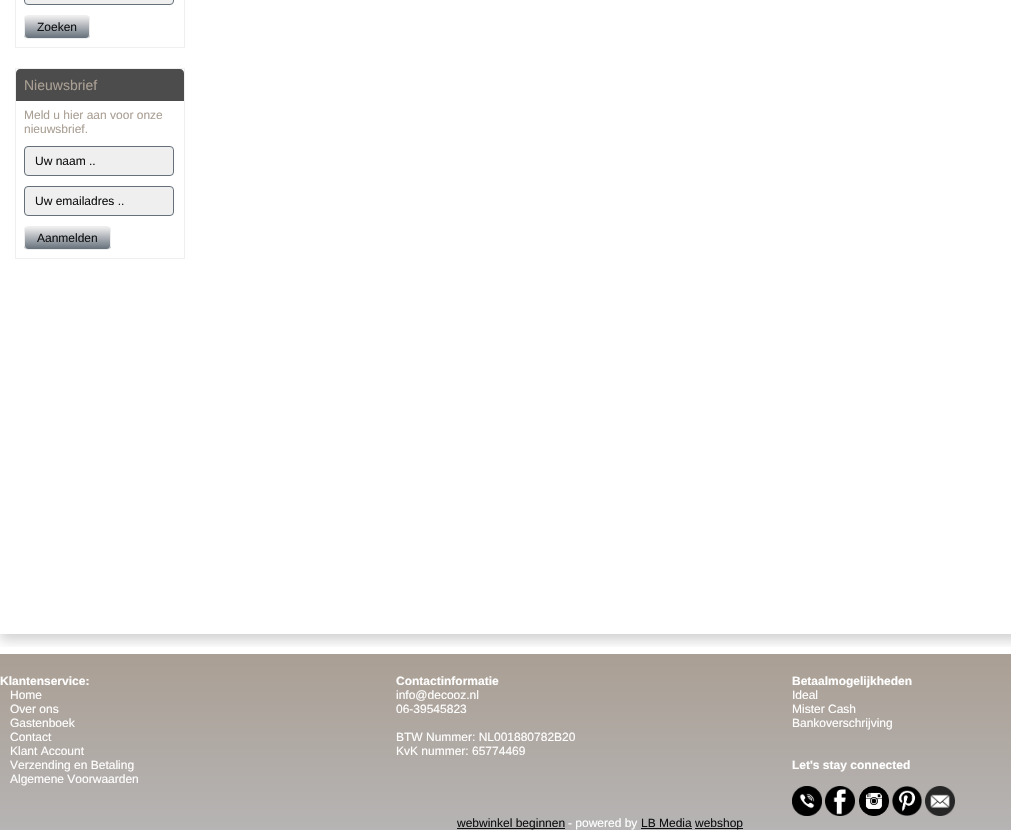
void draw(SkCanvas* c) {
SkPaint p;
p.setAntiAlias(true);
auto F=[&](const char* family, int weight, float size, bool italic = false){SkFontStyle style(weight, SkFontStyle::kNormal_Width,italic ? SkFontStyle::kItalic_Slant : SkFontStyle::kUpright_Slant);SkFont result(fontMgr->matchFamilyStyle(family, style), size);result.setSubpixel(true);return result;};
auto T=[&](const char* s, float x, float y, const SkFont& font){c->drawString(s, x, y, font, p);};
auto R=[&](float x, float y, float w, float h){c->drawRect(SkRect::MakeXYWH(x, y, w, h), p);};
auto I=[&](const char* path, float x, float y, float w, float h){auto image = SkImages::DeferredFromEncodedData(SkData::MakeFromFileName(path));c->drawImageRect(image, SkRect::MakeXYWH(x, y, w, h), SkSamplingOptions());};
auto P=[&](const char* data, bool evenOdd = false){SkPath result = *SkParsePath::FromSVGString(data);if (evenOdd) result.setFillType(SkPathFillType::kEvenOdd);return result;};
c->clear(0xffffffff);
c->save();
c->clipRect(SkRect::MakeXYWH(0,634,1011,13));
p.setColor(0x2e000000);
p.setMaskFilter(SkMaskFilter::MakeBlur(kNormal_SkBlurStyle, 6));
c->drawRect(SkRect::MakeXYWH(0,-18,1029,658),p);
p.setMaskFilter(nullptr);
c->restore();
p.setStroke(true);
p.setStrokeWidth(1);
p.setColor(0xffefefef);
c->drawRect(SkRect::MakeXYWH(15.5,-.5,169,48),p);
p.setStroke(false);
c->drawRoundRect(SkRect::MakeXYWH(24.5,-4.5,149,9),3.5,3.5,p);
p.setStroke(true);
p.setColor(0xff66707b);
c->drawRoundRect(SkRect::MakeXYWH(24.5,-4.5,149,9),3.5,3.5,p);
c->save();
c->clipPath(P("M28 15h58c2 0 4 2 4 4v16c0 2-2 4-4 4h-58c-2 0-4-2-4-4v-16c0-2 2-4 4-4z"),true);
p.setStroke(false);
{
const SkColor colors[] = {0xffefefef,0xff66707b};
const float stops[] = {0,1};
const SkPoint ends[] = {{57,16}, {57,38}};
p.setShader(SkGradientShader::MakeLinear(ends, colors, stops, 2, SkTileMode::kClamp));
p.setAlpha(255);
}
R(24,16,66,22);
c->restore();
p.setStroke(true);
p.setShader(nullptr);
p.setColor(0xffefefef);
c->drawRoundRect(SkRect::MakeXYWH(24.5,15.5,65,23),3.5,3.5,p);
auto f1 = F("Liberation Sans",400,12);
p.setStroke(false);
p.setColor(0xff111213);
T("Zoeken",37,31,f1);
p.setStroke(true);
p.setColor(0xffefefef);
c->drawRect(SkRect::MakeXYWH(15.5,68.5,169,190),p);
p.setStroke(false);
p.setColor(0xff4c4c4c);
c->drawPath(P("M20 69h160c2 0 4 2 4 4v28h-168v-28c0-2 2-4 4-4z"),p);
auto f2 = F("Liberation Sans",400,14);
p.setColor(0xffaa9f94);
T("Nieuwsbrief",24,90,f2);
T("Meld u hier aan voor onze",24,119,f1);
T("nieuwsbrief.",24,133,f1);
p.setColor(0xffefefef);
c->drawRoundRect(SkRect::MakeXYWH(24.5,146.5,149,29),3.5,3.5,p);
p.setStroke(true);
p.setColor(0xff66707b);
c->drawRoundRect(SkRect::MakeXYWH(24.5,146.5,149,29),3.5,3.5,p);
p.setStroke(false);
p.setColor(0xff111213);
T("Uw naam ..",35,165,f1);
p.setColor(0xffefefef);
c->drawRoundRect(SkRect::MakeXYWH(24.5,186.5,149,29),3.5,3.5,p);
p.setStroke(true);
p.setColor(0xff66707b);
c->drawRoundRect(SkRect::MakeXYWH(24.5,186.5,149,29),3.5,3.5,p);
p.setStroke(false);
p.setColor(0xff111213);
T("Uw emailadres ..",35,205,f1);
c->save();
c->clipPath(P("M28 226h79c2 0 4 2 4 4v16c0 2-2 4-4 4h-79c-2 0-4-2-4-4v-16c0-2 2-4 4-4z"),true);
{
const SkColor colors[] = {0xffefefef,0xff66707b};
const float stops[] = {0,1};
const SkPoint ends[] = {{68,227}, {68,249}};
p.setShader(SkGradientShader::MakeLinear(ends, colors, stops, 2, SkTileMode::kClamp));
p.setAlpha(255);
}
R(24,227,87,22);
c->restore();
p.setStroke(true);
p.setShader(nullptr);
p.setColor(0xffefefef);
c->drawRoundRect(SkRect::MakeXYWH(24.5,226.5,86,23),3.5,3.5,p);
p.setStroke(false);
p.setColor(0xff111213);
T("Aanmelden",37,242,f1);
{
const SkColor colors[] = {0xffaa9f94,0xffb6b4b4};
const float stops[] = {0,1};
const SkPoint ends[] = {{506,654}, {506,830}};
p.setShader(SkGradientShader::MakeLinear(ends, colors, stops, 2, SkTileMode::kClamp));
p.setAlpha(255);
}
R(0,654,1011,176);
auto f3 = F("Liberation Sans",700,12);
p.setShader(nullptr);
p.setColor(0xffffffff);
T("Klantenservice:",0,685,f3);
T("Home",10,699,f1);
T("Over ons",10,713,f1);
T("Gastenboek",10,727,f1);
T("Contact",10,741,f1);
T("Klant Account",10,755,f1);
T("Verzending en Betaling",10,769,f1);
T("Algemene Voorwaarden",10,783,f1);
T("Contactinformatie",396,685,f3);
T("info@decooz.nl",396,699,f1);
T("06-39545823",396,713,f1);
T("BTW Nummer: NL001880782B20",396,741,f1);
T("KvK nummer: 65774469",396,755,f1);
T("Betaalmogelijkheden",792,685,f3);
T("Ideal",792,699,f1);
T("Mister Cash",792,713,f1);
T("Bankoverschrijving",792,727,f1);
T("Let's stay connected",792,769,f3);
I("1.png",792,786,30,30);
I("2.png",825,786,30,30);
I("3.png",859,786,30,30);
I("4.png",892,786,30,30);
I("5.png",925,786,30,30);
p.setColor(0xff111213);
R(457,828,108,1);
T("webwinkel beginnen",457,827,f1);
p.setColor(0xffffffff);
T("- powered by",568,827,f1);
p.setColor(0xff111213);
T("LB Media",641,827,f1);
R(641,828,51,1);
R(695,828,48,1);
T("webshop",695,827,f1);
}
